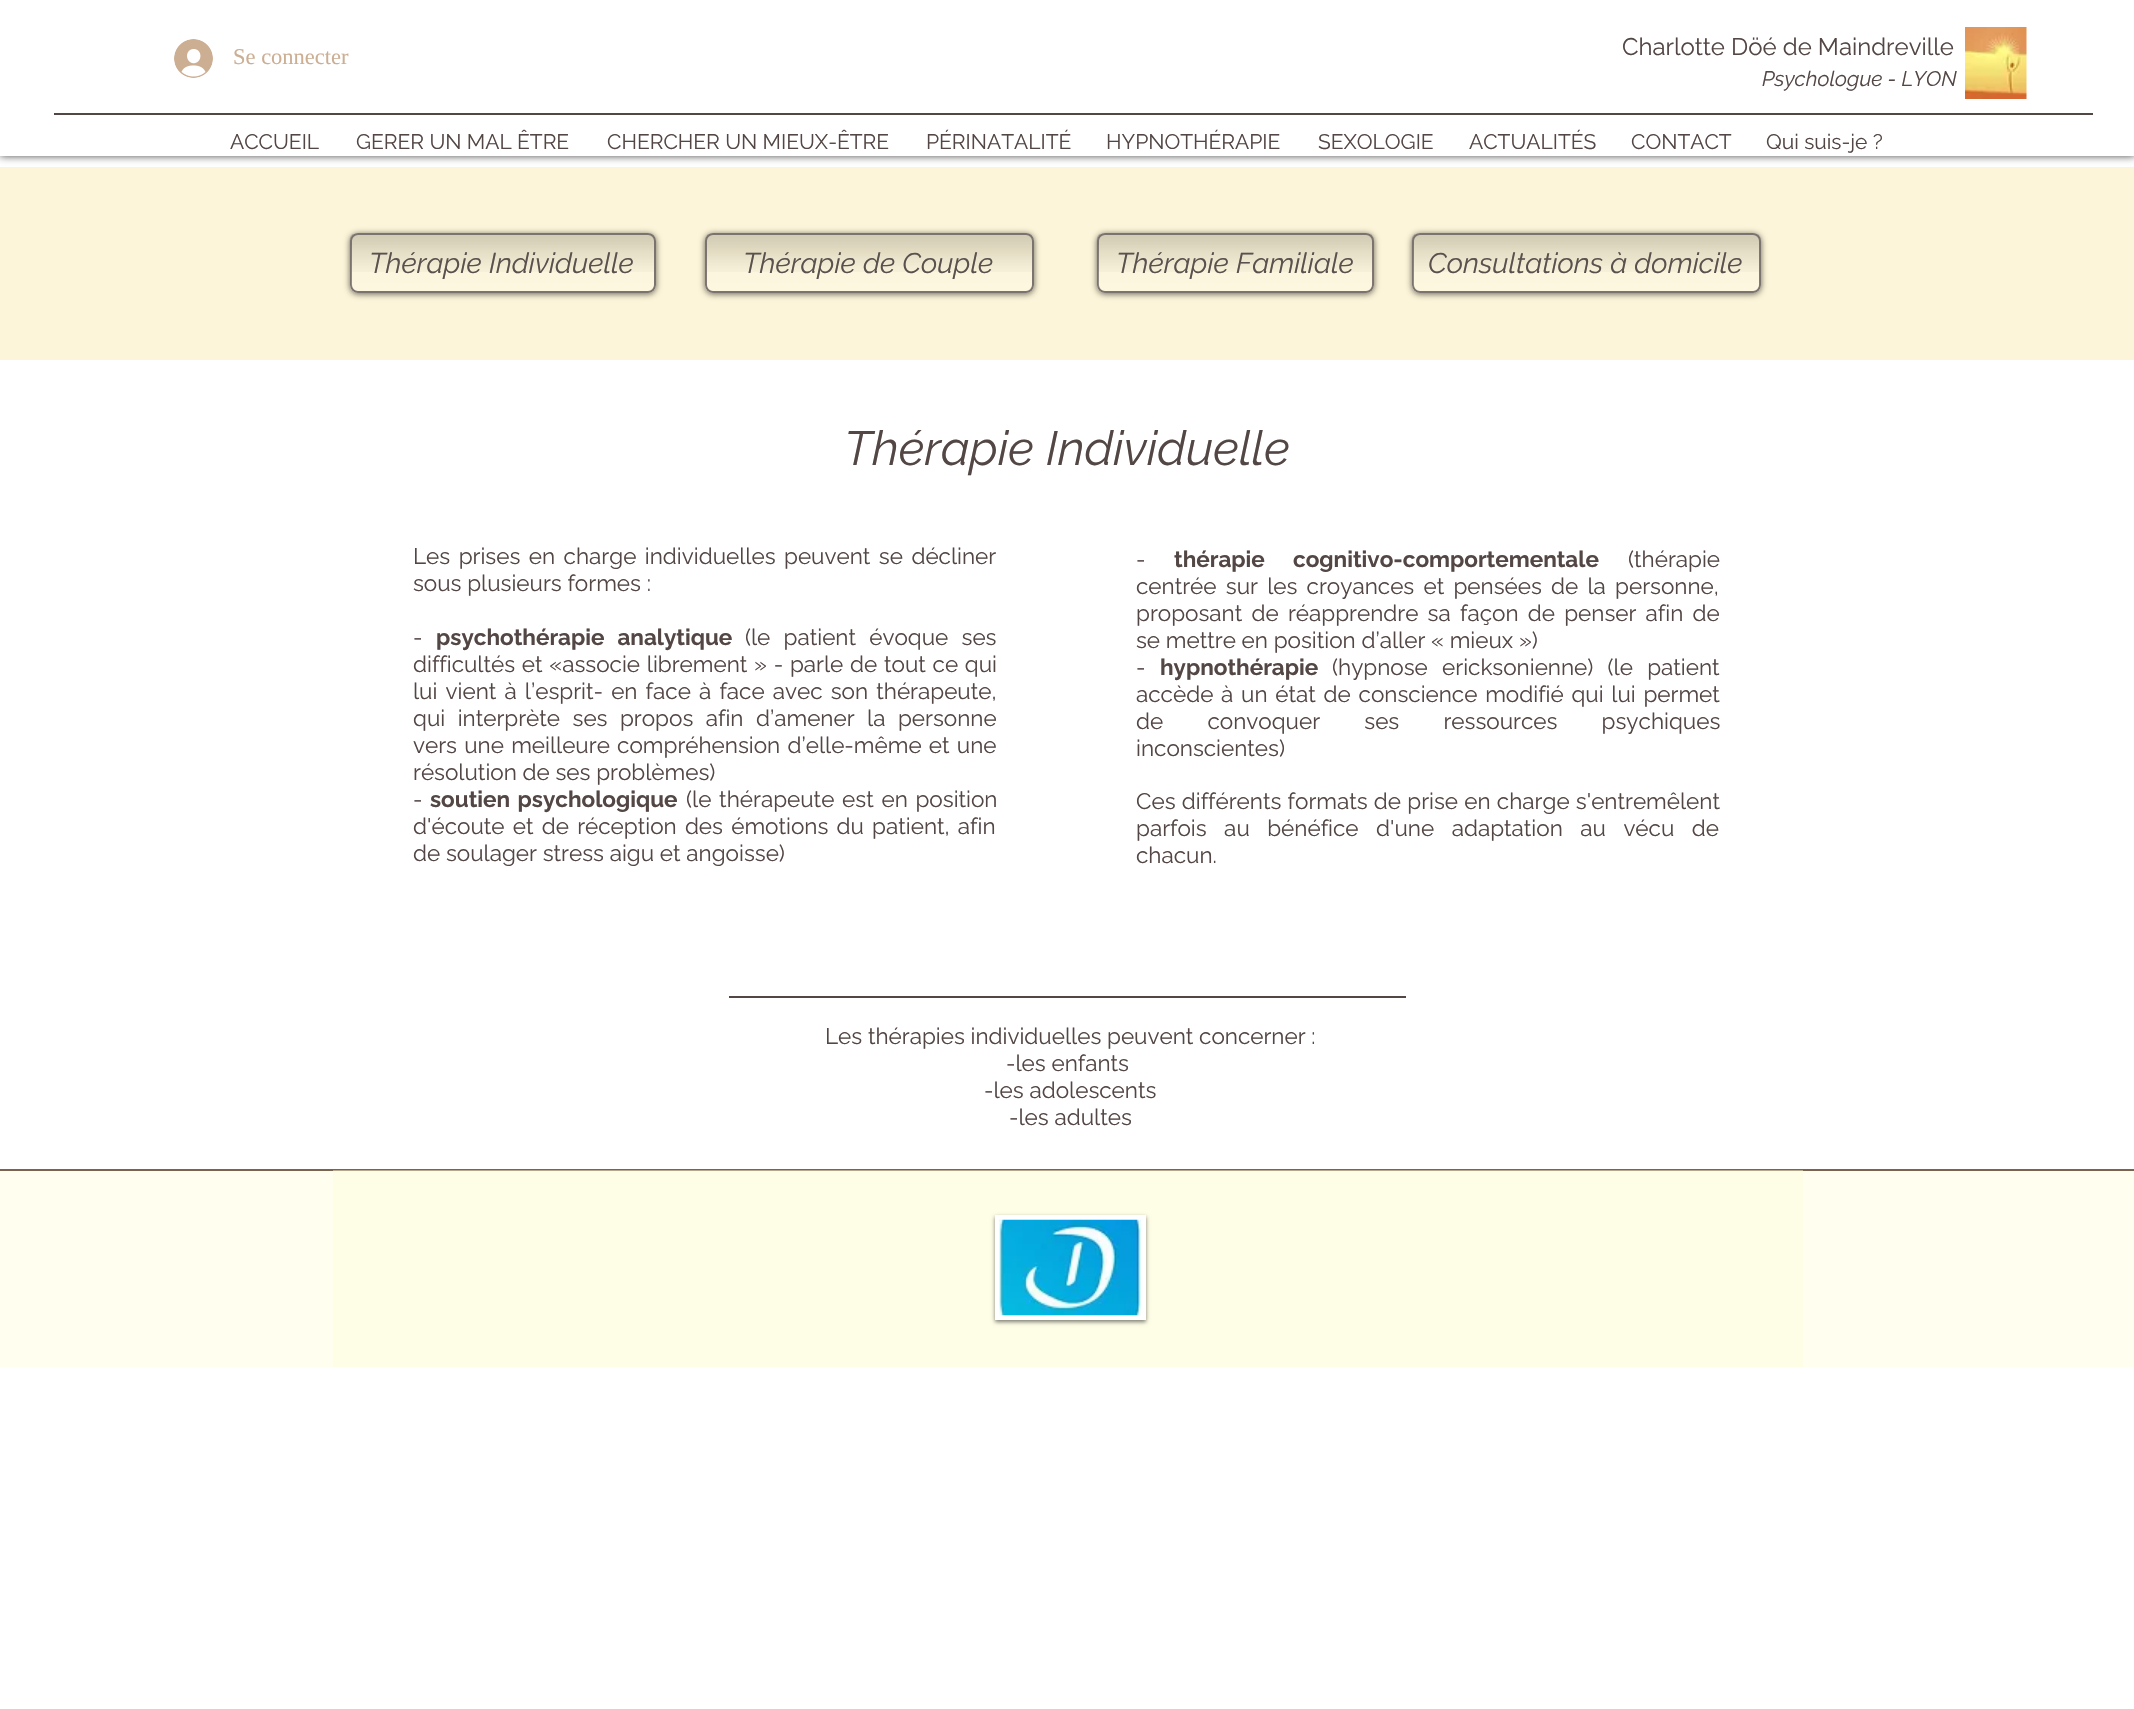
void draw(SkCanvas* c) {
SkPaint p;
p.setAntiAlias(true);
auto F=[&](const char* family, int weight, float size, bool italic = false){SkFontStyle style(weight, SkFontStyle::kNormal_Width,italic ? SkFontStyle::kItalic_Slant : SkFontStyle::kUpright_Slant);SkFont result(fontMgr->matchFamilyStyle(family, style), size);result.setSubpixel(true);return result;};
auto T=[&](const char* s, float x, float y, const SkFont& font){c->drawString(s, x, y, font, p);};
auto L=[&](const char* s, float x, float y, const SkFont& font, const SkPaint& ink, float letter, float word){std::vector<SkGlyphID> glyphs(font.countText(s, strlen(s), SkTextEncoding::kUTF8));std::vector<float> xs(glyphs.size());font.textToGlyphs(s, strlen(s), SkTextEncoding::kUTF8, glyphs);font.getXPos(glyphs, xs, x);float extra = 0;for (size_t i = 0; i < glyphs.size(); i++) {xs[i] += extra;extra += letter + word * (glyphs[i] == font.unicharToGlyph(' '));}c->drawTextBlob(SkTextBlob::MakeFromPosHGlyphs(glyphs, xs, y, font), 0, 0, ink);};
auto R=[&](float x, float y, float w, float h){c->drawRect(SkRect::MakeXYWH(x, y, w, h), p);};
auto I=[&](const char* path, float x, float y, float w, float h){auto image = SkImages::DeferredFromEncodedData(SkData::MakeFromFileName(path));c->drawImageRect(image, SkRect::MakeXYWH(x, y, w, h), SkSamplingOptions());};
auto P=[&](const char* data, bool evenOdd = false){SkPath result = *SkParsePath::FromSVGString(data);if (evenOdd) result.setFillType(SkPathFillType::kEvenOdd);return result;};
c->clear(0xffffffff);
p.setColor(0xfffdf5d9);
R(0,167,2134,193);
p.setColor(0xb3000000);
p.setMaskFilter(SkMaskFilter::MakeBlur(kNormal_SkBlurStyle, 4));
c->drawRect(SkRect::MakeXYWH(0,0,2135,156),p);
p.setMaskFilter(nullptr);
p.setColor(0xffffffff);
R(0,0,2134,156);
I("1.png",174,39,39,39);
auto f1 = F("Liberation Serif",400,22.5);
p.setColor(0xffccae93);
T("Se connecter",233,64,f1);
auto f2 = F("Raleway",400,24);
p.setColor(0xff534745);
T("Charlotte Döé de Maindreville",1622,55,f2);
I("2.png",1965,27,62,72);
auto f3 = F("Raleway",400,21,true);
T("Psychologue - LYON",1762,86,f3);
R(54,113,2039,2);
auto f4 = F("Raleway",400,21);
T("ACCUEIL",230,149,f4);
T("GERER UN MAL ÊTRE",356,149,f4);
T("CHERCHER UN MIEUX-ÊTRE",607,149,f4);
T("PÉRINATALITÉ",926,149,f4);
T("HYPNOTHÉRAPIE",1106,149,f4);
T("SEXOLOGIE",1318,149,f4);
T("ACTUALITÉS",1469,149,f4);
T("CONTACT",1631,149,f4);
T("Qui suis-je ?",1766,149,f4);
c->save();
c->clipPath(P("M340 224h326v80h-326zm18 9h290c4.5 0 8 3.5 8 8v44c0 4.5-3.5 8-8 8h-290c-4.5 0-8-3.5-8-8v-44c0-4.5 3.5-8 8-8z",true),true);
p.setColor(0x99000000);
p.setMaskFilter(SkMaskFilter::MakeBlur(kNormal_SkBlurStyle, 3));
c->drawRoundRect(SkRect::MakeXYWH(350,234,306,60),8,8,p);
p.setMaskFilter(nullptr);
c->restore();
I("3.png",349,234,307,38);
p.setStroke(true);
p.setStrokeWidth(2);
p.setColor(0xff7b736f);
c->drawRoundRect(SkRect::MakeXYWH(351,234,304,58),7,7,p);
I("4.png",351,245,303,46);
auto f5 = F("Raleway",400,28.5,true);
p.setStroke(false);
p.setColor(0xff59514d);
T("Thérapie Individuelle",369,273,f5);
c->save();
c->clipPath(P("M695 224h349v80h-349zm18 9h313c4.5 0 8 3.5 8 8v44c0 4.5-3.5 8-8 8h-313c-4.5 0-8-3.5-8-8v-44c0-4.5 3.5-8 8-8z",true),true);
p.setColor(0x99000000);
p.setMaskFilter(SkMaskFilter::MakeBlur(kNormal_SkBlurStyle, 3));
c->drawRoundRect(SkRect::MakeXYWH(705,234,329,60),8,8,p);
p.setMaskFilter(nullptr);
c->restore();
I("5.png",705,234,329,38);
p.setStroke(true);
p.setColor(0xff7b736f);
c->drawRoundRect(SkRect::MakeXYWH(706,234,327,58),7,7,p);
I("6.png",706,256,326,35);
p.setStroke(false);
p.setColor(0xff59514d);
T("Thérapie de Couple",743,273,f5);
c->save();
c->clipPath(P("M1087 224h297v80h-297zm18 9h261c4.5 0 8 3.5 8 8v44c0 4.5-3.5 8-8 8h-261c-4.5 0-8-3.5-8-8v-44c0-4.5 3.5-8 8-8z",true),true);
p.setColor(0x99000000);
p.setMaskFilter(SkMaskFilter::MakeBlur(kNormal_SkBlurStyle, 3));
c->drawRoundRect(SkRect::MakeXYWH(1097,234,277,60),8,8,p);
p.setMaskFilter(nullptr);
c->restore();
I("7.png",1096,234,278,38);
p.setStroke(true);
p.setColor(0xff7b736f);
c->drawRoundRect(SkRect::MakeXYWH(1098,234,275,58),7,7,p);
I("8.png",1098,245,275,46);
p.setStroke(false);
p.setColor(0xff59514d);
T("Thérapie Familiale",1116,273,f5);
c->save();
c->clipPath(P("M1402 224h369v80h-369zm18 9h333c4.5 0 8 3.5 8 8v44c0 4.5-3.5 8-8 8h-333c-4.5 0-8-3.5-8-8v-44c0-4.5 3.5-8 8-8z",true),true);
p.setColor(0x99000000);
p.setMaskFilter(SkMaskFilter::MakeBlur(kNormal_SkBlurStyle, 3));
c->drawRoundRect(SkRect::MakeXYWH(1412,234,349,60),8,8,p);
p.setMaskFilter(nullptr);
c->restore();
I("9.png",1411,234,350,38);
p.setStroke(true);
p.setColor(0xff7b736f);
c->drawRoundRect(SkRect::MakeXYWH(1413,234,347,58),7,7,p);
I("10.png",1413,245,347,46);
p.setStroke(false);
p.setColor(0xff59514d);
T("Consultations à domicile",1428,273,f5);
auto f6 = F("Raleway",400,48,true);
p.setColor(0xff534745);
T("Thérapie Individuelle",844,465,f6);
auto f7 = F("Raleway",400,22.5);
L("Les prises en charge individuelles peuvent se décliner",413,564,f7,p,0,2.75);
T("sous plusieurs formes :",413,591,f7);
T("-",413,645,f7);
auto f8 = F("Raleway",700,22.5);
L("psychothérapie analytique",436,645,f8,p,0,7.5);
T("(",745,645,f7);
L("le patient évoque ses",751,645,f7,p,0,7.5);
L("difficultés et «associe librement » - parle de tout ce qui",413,672,f7,p,0,1);
L("lui vient à l’esprit- en face à face avec son thérapeute,",413,699,f7,p,0,2.4);
L("qui interprète ses propos afin d’amener la personne",413,726,f7,p,0,6.75);
L("vers une meilleure compréhension d’elle-même et une",413,753,f7,p,0,1.5);
T("résolution de ses problèmes)",413,780,f7);
T("-",413,807,f7);
L("soutien psychologique",430,807,f8,p,0,2);
L("(le thérapeute est en position",686,807,f7,p,0,2);
L("d'écoute et de réception des émotions du patient, afin",413,834,f7,p,0,2.5);
T("de soulager stress aigu et angoisse)",413,861,f7);
T("-",1136,567,f7);
T("thérapie",1174,567,f8);
T("cognitivo-comportementale",1293,567,f8);
T("(thérapie",1628,567,f7);
L("centrée sur les croyances et pensées de la personne,",1136,594,f7,p,0,3.5);
L("proposant de réapprendre sa façon de penser afin de",1136,621,f7,p,0,3.5);
T("se mettre en position d’aller « mieux »)",1136,648,f7);
T("-",1136,675,f7);
T("hypnothérapie",1160,675,f8);
L("(hypnose ericksonienne) (le patient",1332,675,f7,p,0,8.5);
L("accède à un état de conscience modifié qui lui permet",1136,702,f7,p,0,2);
L("de convoquer ses ressources psychiques",1136,729,f7,p,0,38.5);
T("inconscientes)",1136,756,f7);
L("Ces différents formats de prise en charge s'entremêlent",1136,809,f7,p,0,.5);
L("parfois au bénéfice d'une adaptation au vécu de",1136,836,f7,p,0,11.75);
T("chacun.",1136,863,f7);
R(729,996,677,2);
T("Les thérapies individuelles peuvent concerner :",825,1044,f7);
T("-les enfants",1006,1071,f7);
T("-les adolescents",984,1098,f7);
T("-les adultes",1009,1125,f7);
p.setColor(0xfffffeef);
R(0,1171,2134,196);
p.setColor(0xfffefde6);
R(333,1171,1470,196);
p.setColor(0xff7a644e);
R(0,1169,2134,2);
p.setColor(0xffb5a88d);
R(333,1170,1470,1);
p.setColor(0x80000000);
p.setMaskFilter(SkMaskFilter::MakeBlur(kNormal_SkBlurStyle, 2));
c->drawRect(SkRect::MakeXYWH(995,1217,151,105),p);
p.setMaskFilter(nullptr);
p.setColor(0xffffffff);
R(995,1215,151,105);
I("11.png",999,1219,143,97);
}
